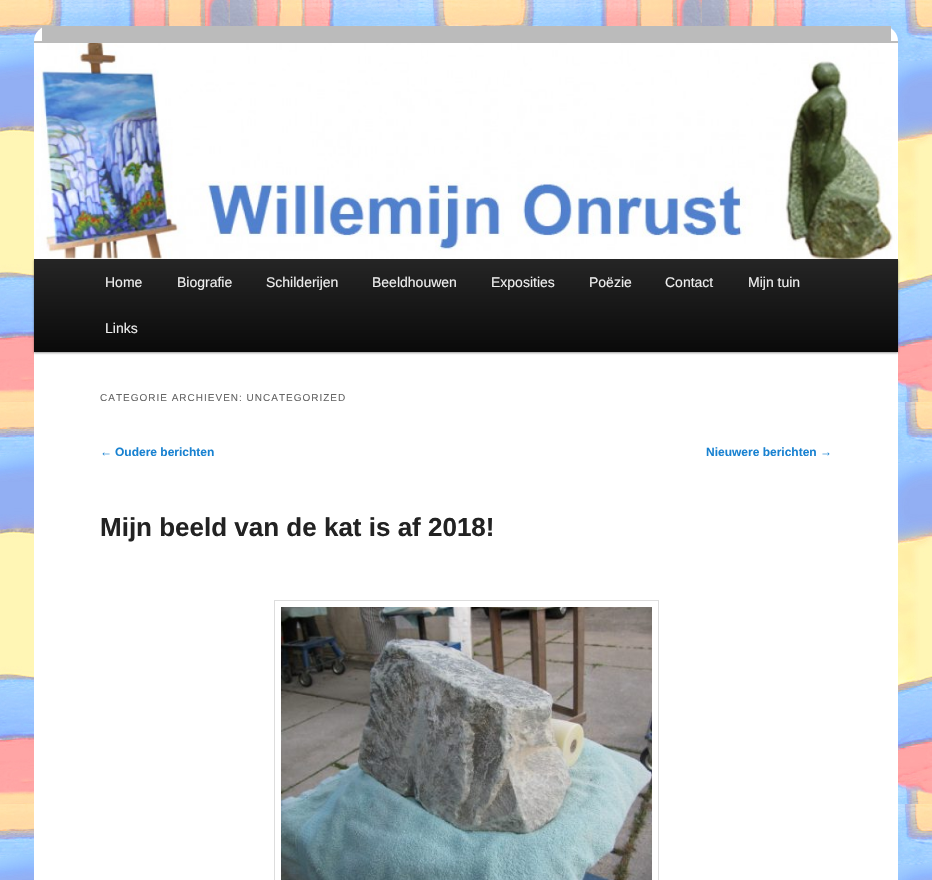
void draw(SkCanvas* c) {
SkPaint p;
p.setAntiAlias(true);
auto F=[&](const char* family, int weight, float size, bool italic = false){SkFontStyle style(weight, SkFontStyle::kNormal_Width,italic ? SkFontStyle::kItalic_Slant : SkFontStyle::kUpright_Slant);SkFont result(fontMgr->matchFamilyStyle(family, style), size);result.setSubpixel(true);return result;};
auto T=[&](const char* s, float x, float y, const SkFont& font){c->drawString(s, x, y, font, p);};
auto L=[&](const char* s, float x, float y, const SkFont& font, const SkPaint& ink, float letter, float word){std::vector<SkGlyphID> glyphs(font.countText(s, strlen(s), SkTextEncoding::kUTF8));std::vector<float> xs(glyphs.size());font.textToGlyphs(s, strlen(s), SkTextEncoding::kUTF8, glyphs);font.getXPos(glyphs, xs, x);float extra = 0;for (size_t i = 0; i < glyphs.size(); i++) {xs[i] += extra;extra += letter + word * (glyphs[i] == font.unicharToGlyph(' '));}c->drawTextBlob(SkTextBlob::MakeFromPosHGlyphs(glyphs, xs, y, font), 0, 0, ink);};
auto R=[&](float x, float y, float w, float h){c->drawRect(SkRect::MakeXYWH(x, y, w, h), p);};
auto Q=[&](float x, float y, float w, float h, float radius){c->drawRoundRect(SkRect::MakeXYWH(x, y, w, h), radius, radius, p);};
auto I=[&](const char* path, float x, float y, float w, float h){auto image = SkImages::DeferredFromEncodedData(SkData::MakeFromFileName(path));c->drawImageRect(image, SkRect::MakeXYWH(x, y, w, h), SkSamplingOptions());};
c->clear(0xffffffff);
I("1.png",0,0,932,880);
p.setColor(0xffffffff);
Q(34,26,864,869,15);
p.setColor(0xffbbbbbb);
R(42,26,849,15);
R(34,41,864,2);
p.setColor(0x66000000);
p.setMaskFilter(SkMaskFilter::MakeBlur(kNormal_SkBlurStyle, 1));
c->drawRect(SkRect::MakeXYWH(34,260,864,93),p);
p.setMaskFilter(nullptr);
I("2.png",34,43,864,216);
{
const SkColor colors[] = {0xff252525,0xff0a0a0a};
const float stops[] = {0,1};
const SkPoint ends[] = {{466,259}, {466,352}};
p.setShader(SkGradientShader::MakeLinear(ends, colors, stops, 2, SkTileMode::kClamp));
p.setAlpha(255);
}
R(34,259,864,93);
auto f1 = F("Liberation Sans",400,14);
p.setShader(nullptr);
p.setColor(0xffeeeeee);
T("Home",105,287,f1);
T("Biografie",177,287,f1);
T("Schilderijen",266,287,f1);
T("Beeldhouwen",372,287,f1);
T("Exposities",491,287,f1);
T("Poëzie",589,287,f1);
T("Contact",665,287,f1);
T("Mijn tuin",748,287,f1);
T("Links",105,333,f1);
auto f2 = F("Liberation Sans",400,10);
p.setColor(0xff666666);
L("CATEGORIE ARCHIEVEN: UNCATEGORIZED",100,401,f2,p,1,0);
auto f3 = F("Liberation Sans",400,12);
p.setColor(0xff1982d1);
T("←",100,456,f3);
auto f4 = F("Liberation Sans",700,12);
T("Oudere berichten",115,456,f4);
T("Nieuwere berichten",706,456,f4);
T("→",820,456,f3);
auto f5 = F("Liberation Sans",700,26);
p.setColor(0xff222222);
T("Mijn beeld van de kat is af 2018!",100,536,f5);
p.setStroke(true);
p.setStrokeWidth(1);
p.setColor(0xffdddddd);
c->drawRect(SkRect::MakeXYWH(274.5,600.5,384,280),p);
I("3.png",281,607,371,273);
}
